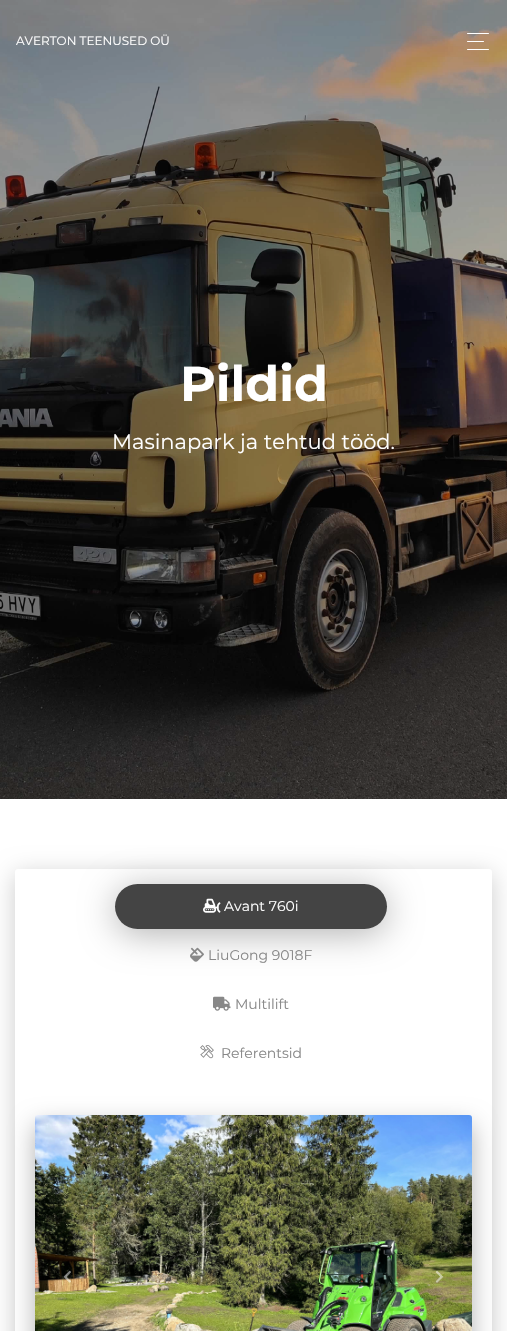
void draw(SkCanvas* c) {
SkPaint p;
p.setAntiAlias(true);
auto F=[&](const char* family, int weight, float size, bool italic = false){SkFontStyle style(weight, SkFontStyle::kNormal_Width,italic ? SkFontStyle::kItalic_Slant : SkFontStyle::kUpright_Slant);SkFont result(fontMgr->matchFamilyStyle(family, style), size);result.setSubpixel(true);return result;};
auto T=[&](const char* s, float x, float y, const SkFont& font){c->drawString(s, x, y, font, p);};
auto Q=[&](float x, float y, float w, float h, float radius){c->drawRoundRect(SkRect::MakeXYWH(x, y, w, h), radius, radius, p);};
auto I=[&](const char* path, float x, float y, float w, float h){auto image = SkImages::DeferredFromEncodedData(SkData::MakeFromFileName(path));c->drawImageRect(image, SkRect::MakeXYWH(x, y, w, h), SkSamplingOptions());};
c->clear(0xffffffff);
I("1.png",0,0,507,799);
auto f1 = F("Montserrat",400,12);
p.setColor(0xffffffff);
T("AVERTON TEENUSED OÜ",16,45,f1);
Q(467,33,22,1,.5);
Q(467,41,17,1,.5);
Q(467,49,22,1,.5);
auto f2 = F("Montserrat",700,49);
T("Pildid",180,401,f2);
auto f3 = F("Montserrat",400,21);
T("Masinapark ja tehtud tööd.",112,449,f3);
p.setColor(0x33000000);
p.setMaskFilter(SkMaskFilter::MakeBlur(kNormal_SkBlurStyle, 12.5));
c->drawRoundRect(SkRect::MakeXYWH(15,874,477,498),3,3,p);
p.setMaskFilter(nullptr);
p.setColor(0xffffffff);
Q(15,869,477,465,3);
p.setColor(0x4d000000);
p.setMaskFilter(SkMaskFilter::MakeBlur(kNormal_SkBlurStyle, 17.5));
c->drawRoundRect(SkRect::MakeXYWH(115,889,272,45),22.5,22.5,p);
p.setMaskFilter(nullptr);
p.setColor(0xff444444);
Q(115,884,272,45,22.5);
I("2.png",203,898,18,15);
auto f4 = F("Montserrat",400,14);
p.setColor(0xffffffff);
T("Avant 760i",224,911,f4);
I("3.png",190,947,14,15);
p.setColor(0xff888888);
T("LiuGong 9018F",208,960,f4);
I("4.png",213,996,18,15);
T("Multilift",235,1009,f4);
I("5.png",200,1045,14,14);
T("Referentsid",221,1058,f4);
p.setColor(0x4d000000);
p.setMaskFilter(SkMaskFilter::MakeBlur(kNormal_SkBlurStyle, 12.5));
c->drawRoundRect(SkRect::MakeXYWH(35,1125,437,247),3,3,p);
p.setMaskFilter(nullptr);
I("6.png",35,1115,437,216);
I("7.png",63,1270,8,13);
I("8.png",435,1270,8,13);
}
